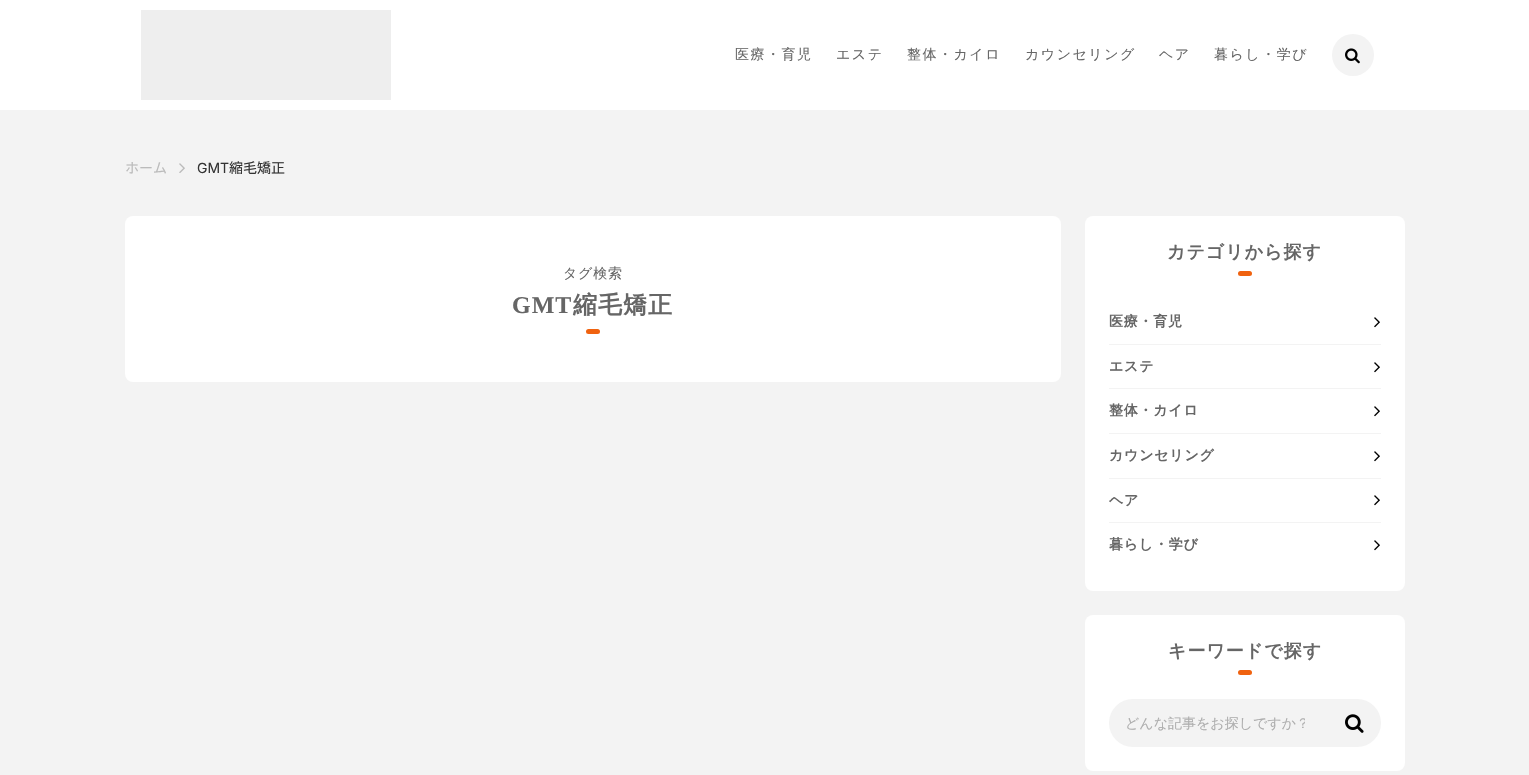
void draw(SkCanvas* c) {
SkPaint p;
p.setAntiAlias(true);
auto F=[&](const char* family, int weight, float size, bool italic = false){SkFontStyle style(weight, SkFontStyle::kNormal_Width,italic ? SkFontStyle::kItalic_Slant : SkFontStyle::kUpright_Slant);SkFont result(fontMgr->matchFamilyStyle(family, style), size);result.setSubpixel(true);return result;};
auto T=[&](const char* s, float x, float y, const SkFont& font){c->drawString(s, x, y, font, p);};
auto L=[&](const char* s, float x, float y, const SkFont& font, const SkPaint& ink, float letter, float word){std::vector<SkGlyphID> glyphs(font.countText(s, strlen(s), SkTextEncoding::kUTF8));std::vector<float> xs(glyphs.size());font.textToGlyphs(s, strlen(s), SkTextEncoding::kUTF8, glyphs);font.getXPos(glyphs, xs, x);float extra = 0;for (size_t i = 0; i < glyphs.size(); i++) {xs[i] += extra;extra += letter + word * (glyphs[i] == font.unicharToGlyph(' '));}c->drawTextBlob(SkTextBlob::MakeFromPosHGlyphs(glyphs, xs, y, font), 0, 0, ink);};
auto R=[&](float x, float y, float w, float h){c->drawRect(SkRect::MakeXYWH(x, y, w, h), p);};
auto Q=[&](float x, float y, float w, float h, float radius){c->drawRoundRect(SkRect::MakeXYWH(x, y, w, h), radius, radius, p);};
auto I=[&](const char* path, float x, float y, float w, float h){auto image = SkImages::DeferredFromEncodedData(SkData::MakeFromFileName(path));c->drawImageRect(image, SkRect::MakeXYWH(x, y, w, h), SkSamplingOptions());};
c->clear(0xfff3f3f3);
p.setColor(0xffffffff);
R(0,0,1529,110);
p.setColor(0xffeeeeee);
R(141,10,250,90);
auto f1 = F("WenQuanYi Zen Hei",500,14);
p.setColor(0xff666666);
L("医療・育児",735,59,f1,p,1.5,0);
L("エステ",836,59,f1,p,1.5,0);
L("整体・カイロ",907,59,f1,p,1.5,0);
L("カウンセリング",1025,59,f1,p,1.5,0);
L("ヘア",1159,59,f1,p,1.5,0);
L("暮らし・学び",1214,59,f1,p,1.5,0);
p.setColor(0xfff3f3f3);
c->drawCircle(1353,55,21,p);
I("1.png",1345,48,15,16);
auto f2 = F("Noto Sans JP",400,14);
p.setColor(0xffbbbbbb);
T("ホーム",125,173,f2);
I("2.png",179,163,6,10);
auto f3 = F("Inter",400,14);
p.setColor(0xff333333);
T("GMT",197,173,f3);
T("縮毛矯正",229,173,f2);
p.setColor(0xffffffff);
Q(125,216,936,166,8);
p.setColor(0xff666666);
L("タグ検索",563,278,f1,p,.75,0);
auto f4 = F("Liberation Serif",700,24);
L("GMT",512,313,f4,p,1,0);
auto f5 = F("WenQuanYi Zen Hei",700,24);
L("縮毛矯正",573,313,f5,p,1,0);
p.setColor(0xfff0620f);
Q(586,329,14,5,2.5);
p.setColor(0xffffffff);
Q(1085,216,320,375,8);
auto f6 = F("WenQuanYi Zen Hei",700,18);
p.setColor(0xff666666);
L("カテゴリから探す",1167,258,f6,p,1,0);
p.setColor(0xfff0620f);
Q(1238,271,14,5,2.5);
auto f7 = F("WenQuanYi Zen Hei",700,14);
p.setColor(0xff666666);
L("医療・育児",1109,326,f7,p,.75,0);
I("3.png",1374,317,6,11);
p.setColor(0xfff3f3f3);
R(1109,344,272,1);
p.setColor(0xff666666);
L("エステ",1109,371,f7,p,.75,0);
I("3.png",1374,362,6,11);
p.setColor(0xfff3f3f3);
R(1109,388,272,1);
p.setColor(0xff666666);
L("整体・カイロ",1109,415,f7,p,.75,0);
I("3.png",1374,406,6,11);
p.setColor(0xfff3f3f3);
R(1109,433,272,1);
p.setColor(0xff666666);
L("カウンセリング",1109,460,f7,p,.75,0);
I("3.png",1374,451,6,11);
p.setColor(0xfff3f3f3);
R(1109,478,272,1);
p.setColor(0xff666666);
L("ヘア",1109,505,f7,p,.75,0);
I("3.png",1374,495,6,11);
p.setColor(0xfff3f3f3);
R(1109,522,272,1);
p.setColor(0xff666666);
L("暮らし・学び",1109,549,f7,p,.75,0);
I("3.png",1374,540,6,11);
p.setColor(0xffffffff);
Q(1085,615,320,156,8);
p.setColor(0xff666666);
L("キーワードで探す",1168,657,f6,p,1,0);
p.setColor(0xfff0620f);
Q(1238,670,14,5,2.5);
p.setColor(0xfff3f3f3);
Q(1109,699,272,48,24);
c->save();
c->clipRect(SkRect::MakeXYWH(1125,713,180,20));
p.setColor(0xffaeaeae);
T("どんな記事をお探しですか？",1125,728,f1);
c->restore();
I("4.png",1345,714,19,19);
}
